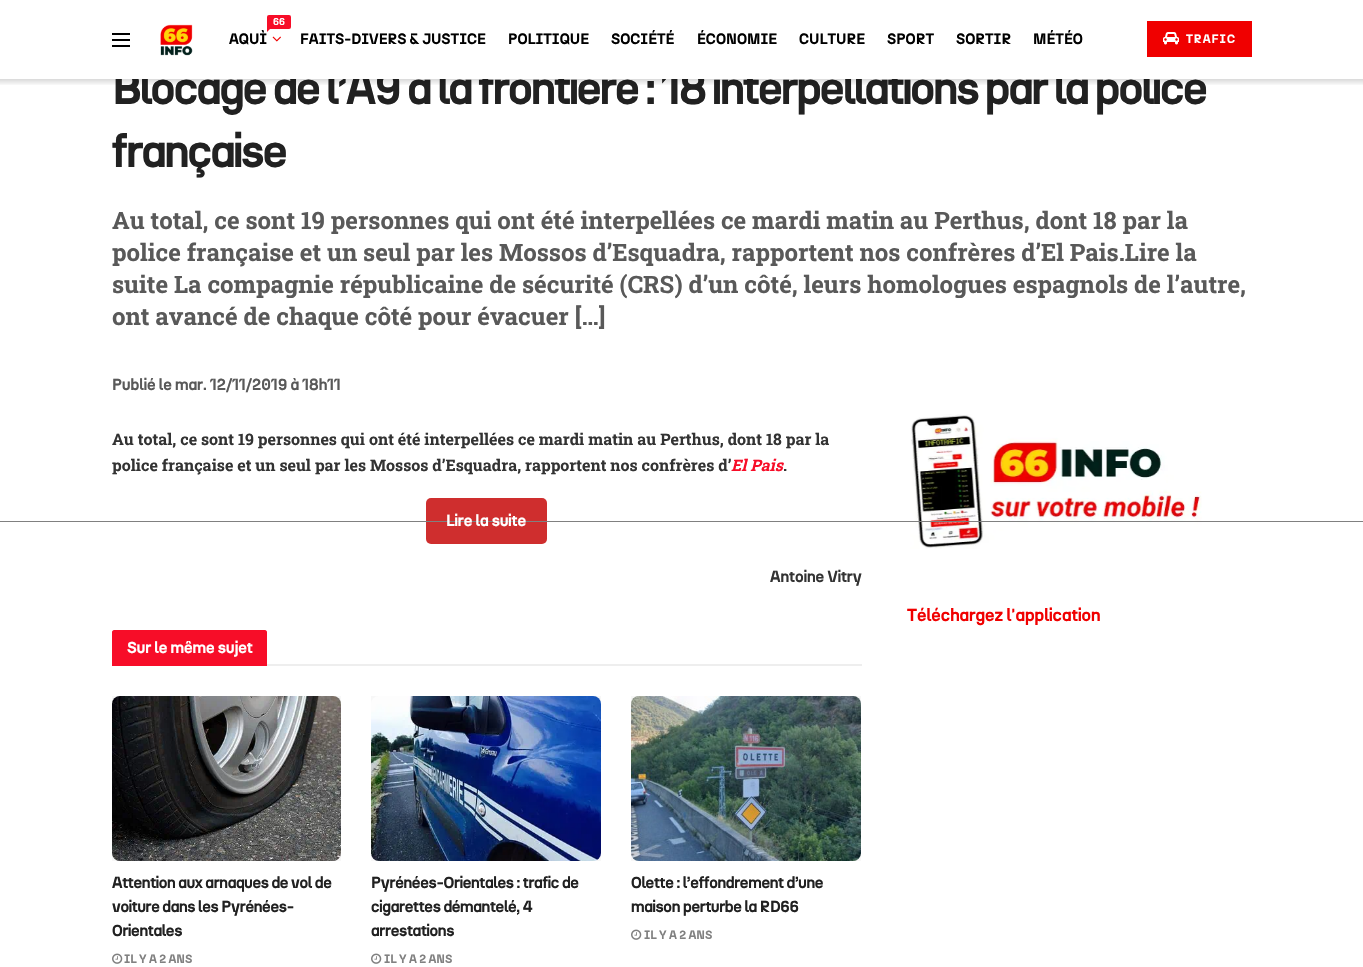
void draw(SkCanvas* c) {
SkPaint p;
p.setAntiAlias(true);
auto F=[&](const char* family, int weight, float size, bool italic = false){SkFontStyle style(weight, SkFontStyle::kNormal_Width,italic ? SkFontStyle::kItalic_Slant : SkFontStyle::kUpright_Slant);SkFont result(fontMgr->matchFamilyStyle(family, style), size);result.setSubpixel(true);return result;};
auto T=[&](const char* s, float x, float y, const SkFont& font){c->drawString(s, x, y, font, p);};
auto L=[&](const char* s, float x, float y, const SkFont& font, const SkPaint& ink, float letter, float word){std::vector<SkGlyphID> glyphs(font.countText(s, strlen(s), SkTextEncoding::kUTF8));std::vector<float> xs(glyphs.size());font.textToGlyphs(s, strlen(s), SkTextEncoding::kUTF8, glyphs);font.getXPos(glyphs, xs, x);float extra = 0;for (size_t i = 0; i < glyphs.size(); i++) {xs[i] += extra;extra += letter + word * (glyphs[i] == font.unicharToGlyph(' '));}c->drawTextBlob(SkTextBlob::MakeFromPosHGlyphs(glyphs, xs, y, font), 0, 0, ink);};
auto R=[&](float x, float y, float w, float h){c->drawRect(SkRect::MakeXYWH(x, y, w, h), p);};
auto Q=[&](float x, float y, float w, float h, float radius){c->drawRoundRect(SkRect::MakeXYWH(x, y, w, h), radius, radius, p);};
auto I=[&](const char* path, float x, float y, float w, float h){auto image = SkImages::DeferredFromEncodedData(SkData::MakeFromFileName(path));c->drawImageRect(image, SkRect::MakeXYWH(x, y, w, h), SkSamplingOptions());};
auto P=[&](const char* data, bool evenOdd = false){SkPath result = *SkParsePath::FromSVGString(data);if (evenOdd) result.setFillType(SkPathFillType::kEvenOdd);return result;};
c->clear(0xffffffff);
auto f1 = F("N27",700,46);
p.setColor(0xff212121);
L("Blocage de l’A9 à la frontière : 18 interpellations par la police",112,104,f1,p,-1.85,0);
p.setColor(0xffffffff);
R(115,68,1046,11);
p.setColor(0xff000000);
R(112,33,18,2);
R(112,39,18,2);
R(112,45,18,2);
I("1.png",160,24,33,32);
p.setColor(0xfff70d28);
Q(267,15,24,14,2);
auto f2 = F("N27",700,10);
p.setColor(0xffffffff);
T("66",273,25,f2);
p.setColor(0xfff70d28);
c->drawPath(P("M267 32v-6l3 3z"),p);
auto f3 = F("N27",700,15);
p.setColor(0xff000000);
T("AQUÌ",229,44,f3);
I("2.png",272,36,9,6);
T("FAITS-DIVERS & JUSTICE",300,44,f3);
T("POLITIQUE",508,44,f3);
T("SOCIÉTÉ",611,44,f3);
T("ÉCONOMIE",697,44,f3);
T("CULTURE",799,44,f3);
T("SPORT",887,44,f3);
T("SORTIR",956,44,f3);
T("MÉTÉO",1033,44,f3);
p.setColor(0xfff00000);
R(1147,21,105,36);
I("3.png",1163,32,16,13);
auto f4 = F("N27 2",700,12);
p.setColor(0xffffffff);
L("TRAFIC",1186,43,f4,p,1,0);
{
const SkColor colors[] = {0x26000000,0x00000000};
const float stops[] = {0,1};
const SkPoint ends[] = {{682,79}, {682,86}};
p.setShader(SkGradientShader::MakeLinear(ends, colors, stops, 2, SkTileMode::kClamp));
p.setAlpha(255);
}
R(0,79,1363,6);
p.setShader(nullptr);
p.setColor(0xff212121);
L("française",112,167,f1,p,-1.85,0);
auto f5 = F("Roboto Slab",700,24);
p.setColor(0xff595959);
T("Au total, ce sont 19 personnes qui ont été interpellées ce mardi matin au Perthus, dont 18 par la",112,229,f5);
T("police française et un seul par les Mossos d’Esquadra, rapportent nos confrères d’El Pais.Lire la",112,261,f5);
T("suite La compagnie républicaine de sécurité (CRS) d’un côté, leurs homologues espagnols de l’autre,",112,293,f5);
T("ont avancé de chaque côté pour évacuer […]",112,325,f5);
auto f6 = F("N27",700,16);
T("Publié le mar. 12/11/2019 à 18h11",112,390,f6);
auto f7 = F("Roboto Slab",700,16);
p.setColor(0xff333333);
T("Au total, ce sont 19 personnes qui ont été interpellées ce mardi matin au Perthus, dont 18 par la",112,445,f7);
T("police française et un seul par les Mossos d’Esquadra, rapportent nos confrères d’",112,471,f7);
auto f8 = F("Roboto Slab",700,16,true);
p.setColor(0xfff70d28);
T("El Pais",731,471,f8);
p.setColor(0xff333333);
T(".",783,471,f7);
p.setColor(0xffcf2e2e);
Q(426,498,121,46,5);
I("8.png",910,414,292,135);
p.setColor(0xff808080);
R(0,521,1363,1);
auto f9 = F("N27 2",700,16);
p.setColor(0xffffffff);
T("Lire la suite",446,526,f9);
p.setColor(0xff333333);
T("Antoine Vitry",770,582,f6);
p.setColor(0xffeeeeee);
R(267,664,595,2);
p.setColor(0xfff70d28);
c->drawPath(P("M114 630h151c1 0 2 1 2 2v34h-155v-34c0-1 1-2 2-2z"),p);
p.setColor(0xffffffff);
T("Sur le même sujet",127,653,f6);
p.setColor(0xfff7f7f7);
R(112,696,229,165);
I("4.png",112,696,229,165);
p.setColor(0xff212121);
L("Attention aux arnaques de vol de",112,888,f6,p,-.3,0);
L("voiture dans les Pyrénées-",112,912,f6,p,-.3,0);
L("Orientales",112,936,f6,p,-.3,0);
I("5.png",112,953,11,11);
p.setColor(0xff808080);
T("IL Y A 2 ANS",124,963,f4);
p.setColor(0xfff7f7f7);
R(371,696,230,165);
I("6.png",371,696,230,165);
p.setColor(0xff212121);
L("Pyrénées-Orientales : trafic de",371,888,f6,p,-.3,0);
L("cigarettes démantelé, 4",371,912,f6,p,-.3,0);
L("arrestations",371,936,f6,p,-.3,0);
I("5.png",371,953,11,11);
p.setColor(0xff808080);
T("IL Y A 2 ANS",384,963,f4);
p.setColor(0xfff7f7f7);
R(631,696,230,165);
I("7.png",631,696,230,165);
p.setColor(0xff212121);
L("Olette : l’effondrement d’une",631,888,f6,p,-.3,0);
L("maison perturbe la RD66",631,912,f6,p,-.3,0);
I("5.png",631,929,11,11);
p.setColor(0xff808080);
T("IL Y A 2 ANS",644,939,f4);
auto f10 = F("N27 2",700,17.5);
p.setColor(0xfff00000);
T("Téléchargez l'application",907,621,f10);
}
